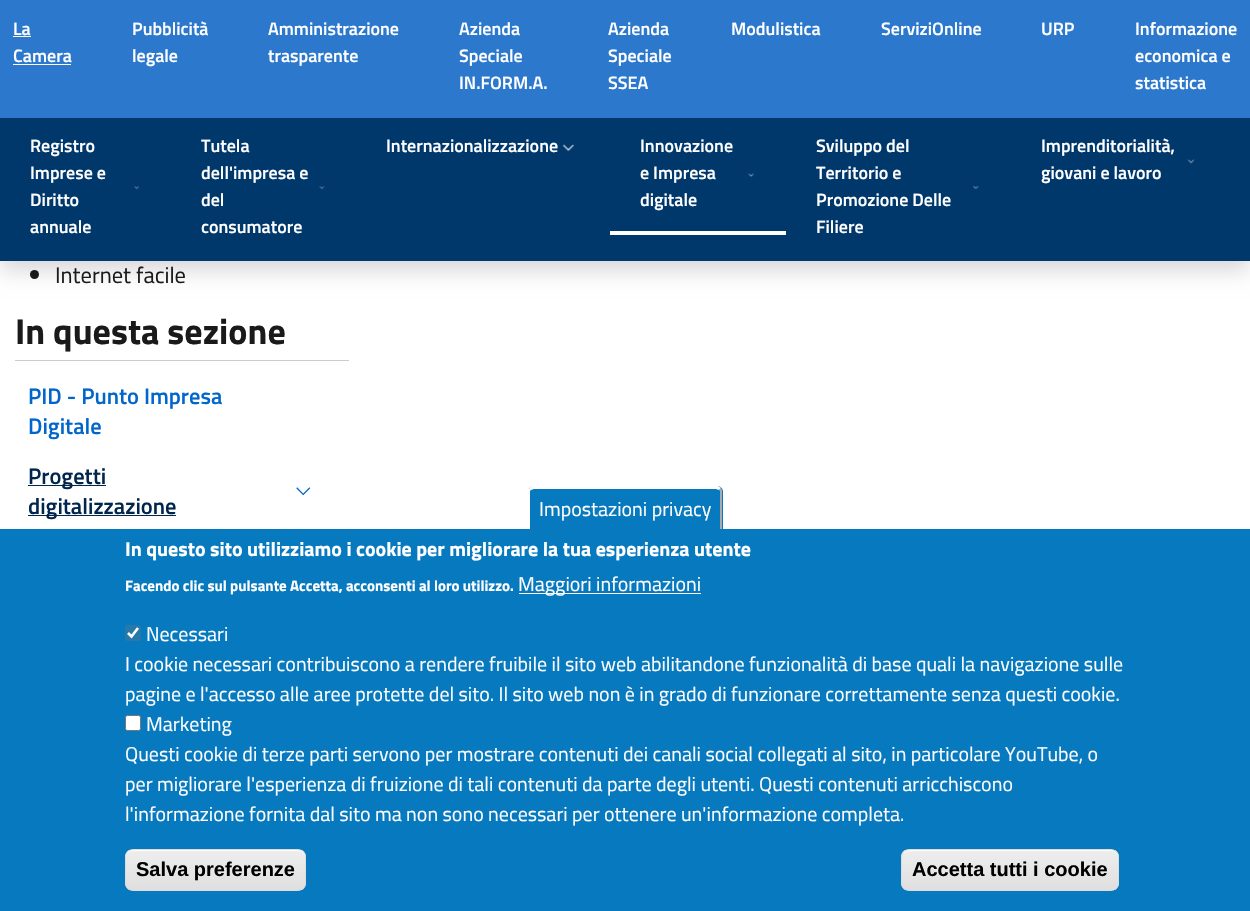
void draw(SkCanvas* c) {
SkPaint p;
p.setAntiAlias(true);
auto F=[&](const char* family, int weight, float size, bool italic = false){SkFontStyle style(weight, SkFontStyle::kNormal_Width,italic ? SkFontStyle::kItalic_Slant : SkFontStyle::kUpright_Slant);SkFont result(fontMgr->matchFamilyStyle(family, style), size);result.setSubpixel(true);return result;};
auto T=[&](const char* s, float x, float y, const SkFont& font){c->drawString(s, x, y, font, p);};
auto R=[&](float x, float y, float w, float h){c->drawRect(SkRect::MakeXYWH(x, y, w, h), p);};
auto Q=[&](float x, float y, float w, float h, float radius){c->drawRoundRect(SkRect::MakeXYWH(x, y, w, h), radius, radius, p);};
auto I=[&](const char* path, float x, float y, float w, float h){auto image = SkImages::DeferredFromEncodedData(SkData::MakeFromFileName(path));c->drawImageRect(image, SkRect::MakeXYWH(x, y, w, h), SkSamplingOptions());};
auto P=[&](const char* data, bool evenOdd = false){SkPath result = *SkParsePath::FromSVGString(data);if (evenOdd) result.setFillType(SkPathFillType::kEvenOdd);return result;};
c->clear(0xffffffff);
p.setColor(0xff1a1a1a);
c->drawCircle(34.5,274.5,4.5,p);
p.setColor(0x26000000);
p.setMaskFilter(SkMaskFilter::MakeBlur(kNormal_SkBlurStyle, 10));
c->drawRect(SkRect::MakeXYWH(0,10,1250,261),p);
p.setMaskFilter(nullptr);
p.setColor(0xff00386c);
R(0,118,1250,143);
p.setColor(0xff2b78cc);
R(0,0,1250,118);
auto f1 = F("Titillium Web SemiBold",600,18);
p.setColor(0xffffffff);
T("La",13,35,f1);
R(13,36,18,1);
T("Camera",13,62,f1);
R(13,64,58,1);
T("Pubblicità",132,35,f1);
T("legale",132,62,f1);
T("Amministrazione",268,35,f1);
T("trasparente",268,62,f1);
T("Azienda",459,35,f1);
T("Speciale",459,62,f1);
T("IN.FORM.A.",459,89,f1);
T("Azienda",608,35,f1);
T("Speciale",608,62,f1);
T("SSEA",608,89,f1);
T("Modulistica",731,35,f1);
T("ServiziOnline",881,35,f1);
T("URP",1041,35,f1);
T("Informazione",1135,35,f1);
T("economica e",1135,62,f1);
T("statistica",1135,89,f1);
T("Registro",30,152,f1);
T("Imprese e",30,179,f1);
T("Diritto",30,206,f1);
T("annuale",30,233,f1);
I("1.png",134,186,5,4);
T("Tutela",201,152,f1);
T("dell'impresa e",201,179,f1);
T("del",201,206,f1);
T("consumatore",201,233,f1);
I("2.png",319,186,6,4);
T("Internazionalizzazione",386,152,f1);
I("3.png",562,144,12,8);
R(610,231,176,4);
T("Innovazione",640,152,f1);
T("e Impresa",640,179,f1);
T("digitale",640,206,f1);
I("4.png",748,173,6,4);
T("Sviluppo del",816,152,f1);
T("Territorio e",816,179,f1);
T("Promozione Delle",816,206,f1);
T("Filiere",816,233,f1);
I("5.png",973,186,6,4);
T("Imprenditorialità,",1041,152,f1);
T("giovani e lavoro",1041,179,f1);
I("6.png",1187,159,8,5);
auto f2 = F("Titillium Web",400,22.5);
p.setColor(0xff1a1a1a);
T("Internet facile",55,283,f2);
p.setColor(0xffcccccc);
R(15,360,334,1);
auto f3 = F("Titillium Web",700,36);
p.setColor(0xff1a1a1a);
T("In questa sezione",15,344,f3);
auto f4 = F("Titillium Web SemiBold",600,22.5);
p.setColor(0xff0066cc);
T("PID - Punto Impresa",28,404,f4);
T("Digitale",28,434,f4);
p.setColor(0xff00264d);
R(28,485,78,1);
T("Progetti",28,484,f4);
R(28,515,148,1);
T("digitalizzazione",28,514,f4);
I("7.png",296,487,15,9);
p.setColor(0xff0779bf);
R(0,529,1250,382);
c->drawPath(P("M534 486h183c3.5 0 6 2.5 6 6v37h-195v-37c0-3.5 2.5-6 6-6z"),p);
p.setColor(0xffffffff);
c->drawPath(P("M534 489l-3 1l-2-2l3-2h186c1 1 2 1 3 2l-2 2l-3-1z"),p);
p.setColor(0xffaaaaaa);
c->drawPath(P("M720 529v-38l-1-1l2-2c1 1 1 3 1 4v37z"),p);
p.setColor(0xffffffff);
c->drawPath(P("M527 529v-39l2-2l2 2l-1 1v38z"),p);
auto f5 = F("Titillium Web",400,20);
T("Impostazioni privacy",539,516,f5);
auto f6 = F("Titillium Web",700,20);
T("In questo sito utilizziamo i cookie per migliorare la tua esperienza utente",125,556,f6);
auto f7 = F("Titillium Web",700,15);
T("Facendo clic sul pulsante Accetta, acconsenti al loro utilizzo.",125,591,f7);
R(519,593,182,1);
T("Maggiori informazioni",518,591,f5);
p.setColor(0xff2878a9);
Q(125,625,16,16,2.5);
p.setStroke(true);
p.setStrokeWidth(2.6);
p.setColor(0xffffffff);
c->drawPath(P("M128 633l3.5 3.5l6.5-8.5"),p);
p.setStroke(false);
T("Necessari",146,641,f5);
T("I cookie necessari contribuiscono a rendere fruibile il sito web abilitandone funzionalità di base quali la navigazione sulle",125,671,f5);
T("pagine e l'accesso alle aree protette del sito. Il sito web non è in grado di funzionare correttamente senza questi cookie.",125,701,f5);
c->drawRoundRect(SkRect::MakeXYWH(125.5,715.5,15,15),2,2,p);
p.setStroke(true);
p.setStrokeWidth(1);
p.setColor(0xff767676);
c->drawRoundRect(SkRect::MakeXYWH(125.5,715.5,15,15),2,2,p);
p.setStroke(false);
p.setColor(0xffffffff);
T("Marketing",146,731,f5);
T("Questi cookie di terze parti servono per mostrare contenuti dei canali social collegati al sito, in particolare YouTube, o",125,761,f5);
T("per migliorare l'esperienza di fruizione di tali contenuti da parte degli utenti. Questi contenuti arricchiscono",125,791,f5);
T("l'informazione fornita dal sito ma non sono necessari per ottenere un'informazione completa.",125,821,f5);
c->save();
c->clipPath(P("M133 849h165c4.5 0 8 3.5 8 8v26c0 4.5-3.5 8-8 8h-165c-4.5 0-8-3.5-8-8v-26c0-4.5 3.5-8 8-8z"),true);
{
const SkColor colors[] = {0xffededed,0xffdfdfdf};
const float stops[] = {.05,1};
const SkPoint ends[] = {{216,850}, {216,890}};
p.setShader(SkGradientShader::MakeLinear(ends, colors, stops, 2, SkTileMode::kClamp));
p.setAlpha(255);
}
R(125,850,181,40);
c->restore();
p.setShader(nullptr);
p.setColor(0xffffffff);
c->drawPath(P("M132 851h167c3 0 6 3 6 7v-2c0-3-3-6-6-6h-167c-3 0-6 3-6 6v2c0-4 3-7 6-7z"),p);
p.setStroke(true);
p.setColor(0xffdcdcdc);
c->drawRoundRect(SkRect::MakeXYWH(125.5,849.5,180,41),7.5,7.5,p);
auto f8 = F("Liberation Sans",700,20);
p.setStroke(false);
p.setColor(0xff000000);
T("Salva preferenze",136,876,f8);
c->save();
c->clipPath(P("M909 849h202c4.5 0 8 3.5 8 8v26c0 4.5-3.5 8-8 8h-202c-4.5 0-8-3.5-8-8v-26c0-4.5 3.5-8 8-8z"),true);
{
const SkColor colors[] = {0xffededed,0xffdfdfdf};
const float stops[] = {.05,1};
const SkPoint ends[] = {{1010,850}, {1010,890}};
p.setShader(SkGradientShader::MakeLinear(ends, colors, stops, 2, SkTileMode::kClamp));
p.setAlpha(255);
}
R(901,850,218,40);
c->restore();
p.setShader(nullptr);
p.setColor(0xffffffff);
c->drawPath(P("M909 851h202c4 0 7 3 7 7v-2c0-3-3-6-6-6h-203c-2 0-5 1-5 4c1-2 3-3 5-3z"),p);
p.setStroke(true);
p.setColor(0xffdcdcdc);
c->drawRoundRect(SkRect::MakeXYWH(901.5,849.5,217,41),7.5,7.5,p);
p.setStroke(false);
p.setColor(0xff000000);
T("Accetta tutti i cookie",912,876,f8);
}
